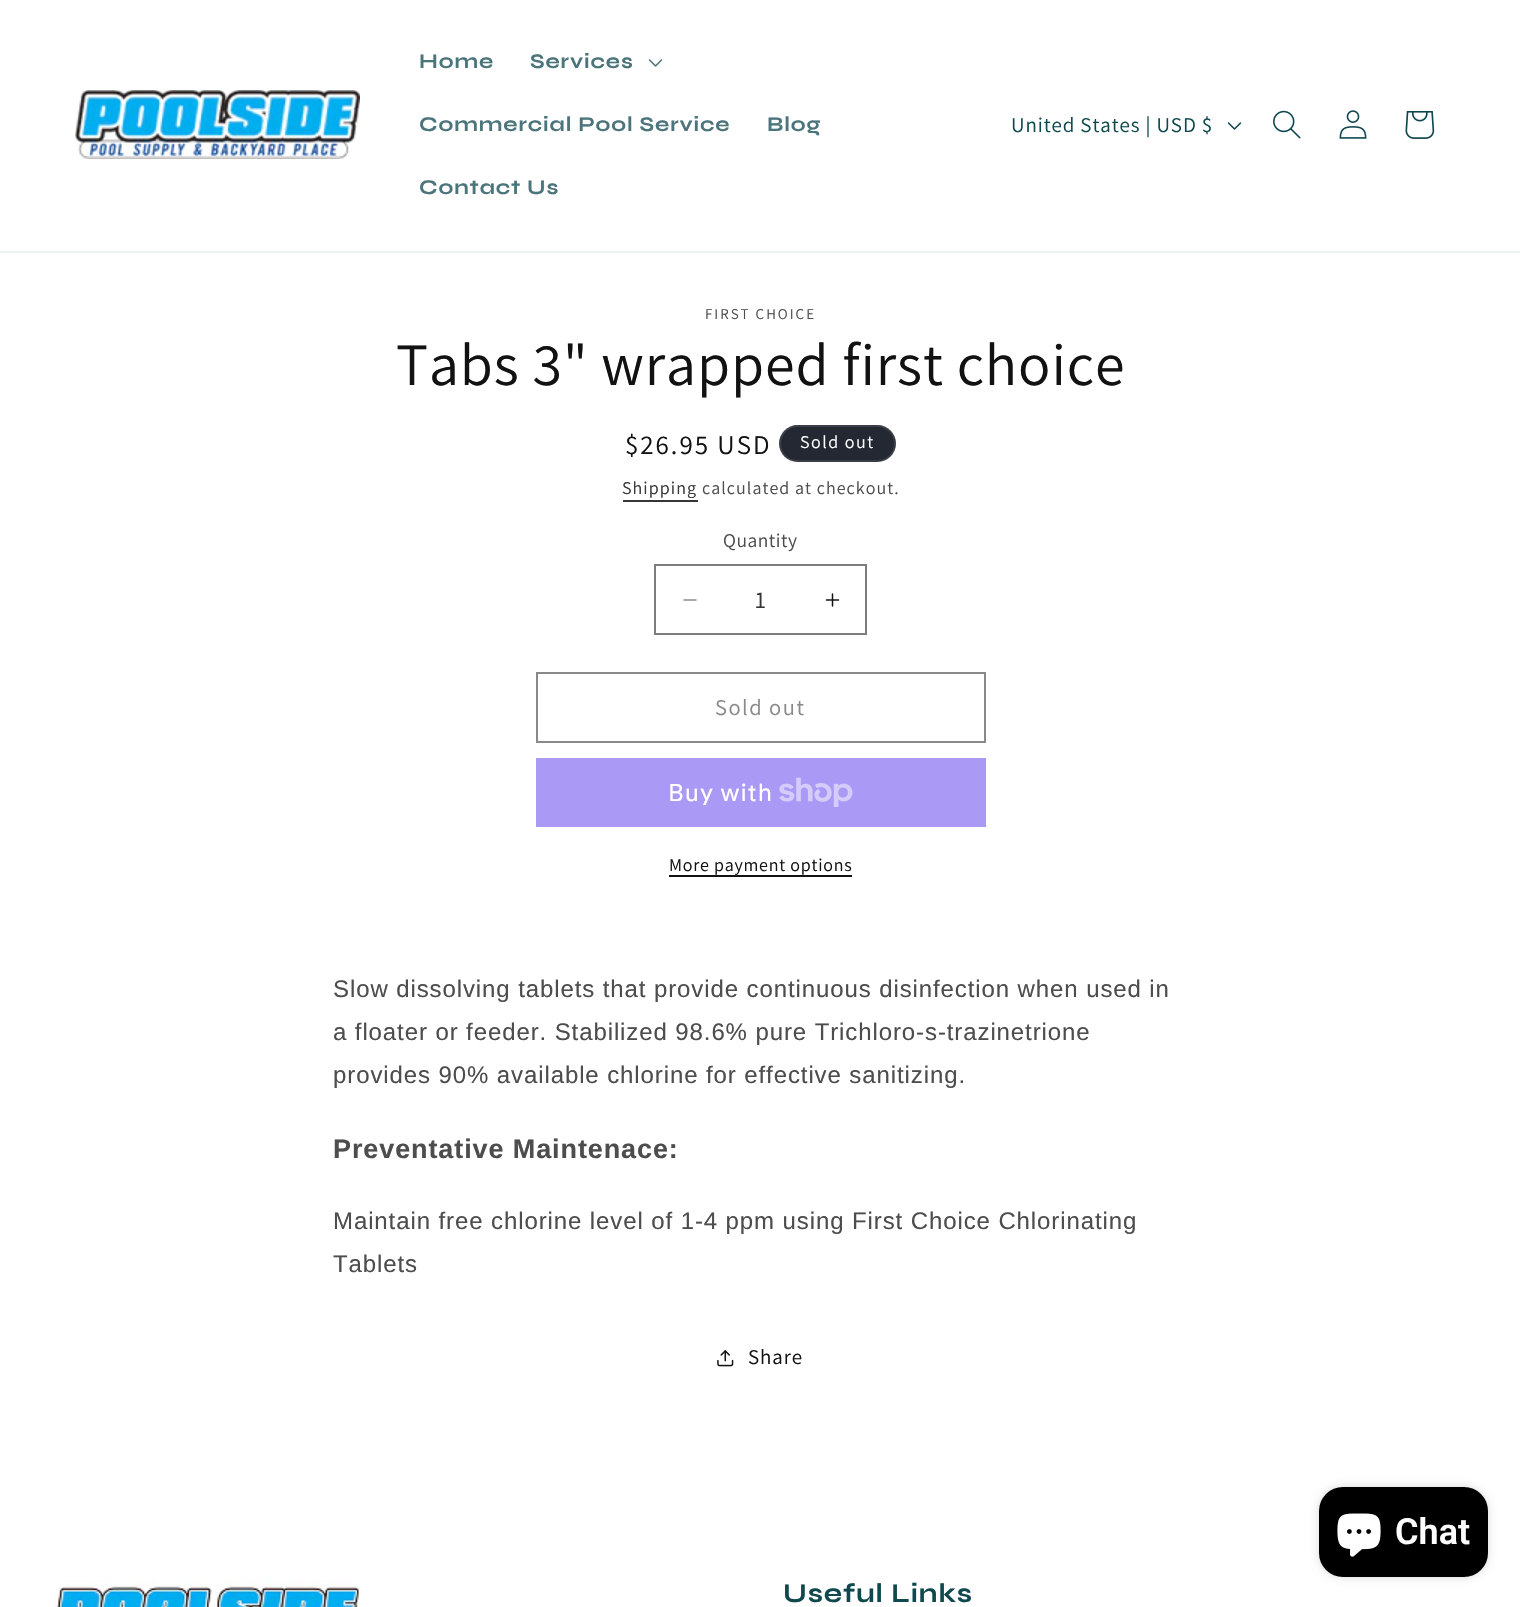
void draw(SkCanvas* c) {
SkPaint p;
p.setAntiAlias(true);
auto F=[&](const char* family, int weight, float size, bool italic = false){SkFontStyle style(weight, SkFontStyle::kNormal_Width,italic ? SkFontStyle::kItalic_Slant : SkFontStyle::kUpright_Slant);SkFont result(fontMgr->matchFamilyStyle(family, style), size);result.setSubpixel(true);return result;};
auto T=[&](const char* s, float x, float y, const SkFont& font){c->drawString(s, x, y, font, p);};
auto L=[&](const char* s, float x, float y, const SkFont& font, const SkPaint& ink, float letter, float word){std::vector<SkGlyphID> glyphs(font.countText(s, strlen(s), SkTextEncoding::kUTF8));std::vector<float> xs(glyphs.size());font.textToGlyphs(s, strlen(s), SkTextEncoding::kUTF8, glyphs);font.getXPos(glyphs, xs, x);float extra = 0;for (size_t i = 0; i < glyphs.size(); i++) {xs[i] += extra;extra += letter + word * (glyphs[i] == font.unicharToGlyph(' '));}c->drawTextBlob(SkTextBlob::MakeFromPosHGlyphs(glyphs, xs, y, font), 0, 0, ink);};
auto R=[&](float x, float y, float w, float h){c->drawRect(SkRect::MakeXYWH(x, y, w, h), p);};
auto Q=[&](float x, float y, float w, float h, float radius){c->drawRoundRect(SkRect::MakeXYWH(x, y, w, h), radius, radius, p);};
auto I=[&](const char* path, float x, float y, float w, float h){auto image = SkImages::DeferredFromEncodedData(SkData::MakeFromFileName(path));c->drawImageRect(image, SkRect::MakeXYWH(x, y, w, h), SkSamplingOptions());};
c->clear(0xffffffff);
p.setColor(0xffecf0f1);
R(0,251,1520,2);
I("1.png",75,90,285,69);
auto f1 = F("Syne",700,21);
p.setColor(0xff4b747b);
L("Home",419,68,f1,p,.9,0);
L("Services",530,68,f1,p,.9,0);
I("2.png",648,59,15,8);
L("Commercial Pool Service",419,131,f1,p,.9,0);
L("Blog",767,131,f1,p,.9,0);
L("Contact Us",419,194,f1,p,.9,0);
auto f2 = F("Assistant",400,21);
p.setColor(0xff0f494d);
L("United States | USD $",1011,132,f2,p,.9,0);
I("3.png",1227,122,15,8);
I("4.png",1273,110,28,29);
I("5.png",1339,110,28,29);
I("6.png",1405,111,30,28);
auto f3 = F("Assistant",400,15);
p.setColor(0xff4d4d4d);
L("FIRST CHOICE",705,319,f3,p,2,0);
auto f4 = F("Assistant",400,60);
p.setColor(0xff121212);
L("Tabs 3\" wrapped first choice",396,385,f4,p,.9,0);
auto f5 = F("Assistant",400,27);
L("$26.95 USD",625,454,f5,p,2,0);
p.setColor(0xff242833);
Q(779,425,117,37,18.5);
p.setStroke(true);
p.setStrokeWidth(2);
p.setColor(0x1affffff);
c->drawRoundRect(SkRect::MakeXYWH(780,426,115,35),17.5,17.5,p);
auto f6 = F("Assistant",400,18);
p.setStroke(false);
p.setColor(0xffffffff);
L("Sold out",800,448,f6,p,1.5,0);
p.setColor(0xff363636);
L("Shipping",622,494,f6,p,1.05,0);
R(623,500,75,2);
p.setColor(0xff4d4d4d);
L("calculated at checkout.",702,494,f6,p,1.05,0);
auto f7 = F("Assistant",400,19.5);
L("Quantity",723,547,f7,p,.5,0);
I("7.png",683,599,14,2);
I("8.png",825,593,15,14);
p.setStroke(true);
p.setColor(0xff7d7d7d);
c->drawRect(SkRect::MakeXYWH(655,565,211,69),p);
auto f8 = F("Assistant",400,24);
p.setStroke(false);
p.setColor(0xff363636);
T("1",755,608,f8);
p.setStroke(true);
p.setColor(0xff898989);
c->drawRect(SkRect::MakeXYWH(537,673,448,69),p);
auto f9 = F("Assistant",400,22.5);
p.setStroke(false);
L("Sold out",715,715,f9,p,1.5,0);
p.setColor(0xffaa99f5);
R(536,758,450,69);
auto f10 = F("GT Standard",400,24);
p.setColor(0xffffffff);
L("Buy with",668,801,f10,p,.9,0);
I("9.png",779,777,74,30);
p.setColor(0xff121212);
L("More payment options",669,871,f6,p,.75,0);
R(669,875,183,2);
auto f11 = F("Liberation Sans",400,24);
p.setColor(0xff4d4d4d);
L("Slow dissolving tablets that provide continuous disinfection when used in",333,997,f11,p,.9,0);
L("a floater or feeder. Stabilized 98.6% pure Trichloro-s-trazinetrione",333,1040,f11,p,.9,0);
L("provides 90% available chlorine for effective sanitizing.",333,1083,f11,p,.9,0);
auto f12 = F("Liberation Sans",700,27);
L("Preventative Maintenace:",333,1158,f12,p,.9,0);
L("Maintain free chlorine level of 1-4 ppm using First Choice Chlorinating",333,1229,f11,p,.9,0);
L("Tablets",333,1272,f11,p,.9,0);
I("10.png",717,1350,17,17);
p.setColor(0xff121212);
L("Share",748,1364,f2,p,.9,0);
p.setColor(0x26000000);
p.setMaskFilter(SkMaskFilter::MakeBlur(kNormal_SkBlurStyle, 4));
c->drawRoundRect(SkRect::MakeXYWH(1319,1487,169,90),24,24,p);
p.setMaskFilter(nullptr);
p.setColor(0xff000000);
Q(1319,1487,169,90,24);
I("11.png",1337,1513,44,44);
auto f13 = F("Roboto",600,36);
p.setColor(0xffffffff);
T("Chat",1395,1544,f13);
I("12.png",53,1580,306,27);
auto f14 = F("Syne",700,27);
p.setColor(0xff0f494d);
L("Useful Links",783,1602,f14,p,.9,0);
}
